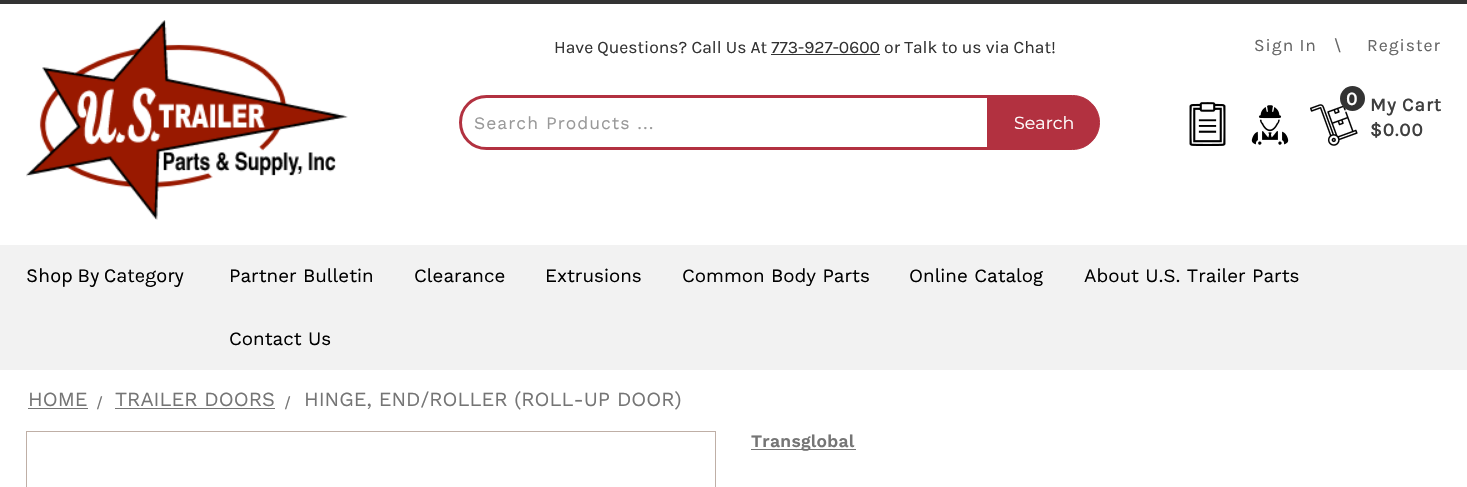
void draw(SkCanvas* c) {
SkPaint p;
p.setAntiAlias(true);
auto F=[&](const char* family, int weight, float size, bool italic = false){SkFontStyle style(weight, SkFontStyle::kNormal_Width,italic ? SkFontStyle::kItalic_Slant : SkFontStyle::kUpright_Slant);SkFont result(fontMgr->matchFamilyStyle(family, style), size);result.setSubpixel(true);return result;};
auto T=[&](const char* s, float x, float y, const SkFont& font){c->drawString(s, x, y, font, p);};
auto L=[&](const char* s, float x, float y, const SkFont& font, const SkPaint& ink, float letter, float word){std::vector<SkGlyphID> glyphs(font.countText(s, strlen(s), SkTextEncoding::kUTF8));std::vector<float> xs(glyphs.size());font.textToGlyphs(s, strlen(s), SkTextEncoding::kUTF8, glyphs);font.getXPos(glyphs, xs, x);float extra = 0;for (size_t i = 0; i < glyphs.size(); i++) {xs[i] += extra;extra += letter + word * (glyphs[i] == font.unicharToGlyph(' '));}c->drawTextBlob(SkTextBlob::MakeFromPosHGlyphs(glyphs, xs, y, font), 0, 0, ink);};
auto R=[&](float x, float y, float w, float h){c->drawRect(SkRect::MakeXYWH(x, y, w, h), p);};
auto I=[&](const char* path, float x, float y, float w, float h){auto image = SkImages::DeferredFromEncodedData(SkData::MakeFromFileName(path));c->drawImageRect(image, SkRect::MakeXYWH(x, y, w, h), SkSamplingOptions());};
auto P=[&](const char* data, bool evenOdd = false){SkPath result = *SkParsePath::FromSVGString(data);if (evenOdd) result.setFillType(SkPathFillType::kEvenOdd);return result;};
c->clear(0xffffffff);
p.setColor(0xff333333);
R(0,0,1467,4);
I("1.png",26,20,322,200);
auto f1 = F("Karla",400,17.5);
T("Have Questions? Call Us At 773-927-0600 or Talk to us via Chat!",554,53,f1);
R(771,54,109,1);
p.setColor(0xff666666);
L("Sign In",1254,51,f1,p,1,0);
L("\\",1334,51,f1,p,1,0);
L("Register",1367,51,f1,p,1,0);
p.setStroke(true);
p.setStrokeWidth(3);
p.setColor(0xffb23140);
c->drawPath(P("M486.5 96.5h502v52h-502c-14.5 0-26-11.5-26-26c0-14.5 11.5-26 26-26z"),p);
auto f2 = F("Work Sans",400,17.5);
p.setStroke(false);
p.setColor(0xff999999);
L("Search Products ...",474,129,f2,p,1,0);
p.setColor(0xffb23140);
c->drawPath(P("M988.5 95.5h84c15 0 27 12 27 27c0 15-12 27-27 27h-84z"),p);
p.setStroke(true);
p.setStrokeWidth(1);
c->drawPath(P("M988.5 95.5h84c15 0 27 12 27 27c0 15-12 27-27 27h-84z"),p);
auto f3 = F("Montserrat",400,17.5);
p.setStroke(false);
p.setColor(0xffffffff);
T("Search",1014,129,f3);
I("2.png",1189,102,37,44);
I("3.png",1251,105,38,40);
I("4.png",1310,104,48,42);
p.setColor(0xff333333);
c->drawCircle(1352.5,98.5,12.5,p);
auto f4 = F("Karla",700,18.75);
p.setColor(0xffffffff);
L("0",1346,105,f4,p,1,0);
p.setColor(0xff3f3f3f);
L("My Cart",1370,111,f4,p,1,0);
L("$0.00",1370,136,f4,p,1,0);
p.setColor(0xfff2f2f2);
R(0,245,1467,125);
auto f5 = F("Karla",400,20);
p.setColor(0xff000000);
T("Shop By Category",26,282,f5);
auto f6 = F("Work Sans",400,18.75);
T("Partner Bulletin",229,282,f6);
T("Clearance",414,282,f6);
T("Extrusions",545,282,f6);
T("Common Body Parts",682,282,f6);
T("Online Catalog",909,282,f6);
T("About U.S. Trailer Parts",1084,282,f6);
T("Contact Us",229,345,f6);
auto f7 = F("Work Sans",400,20);
p.setColor(0xff757575);
T("HOME",28,406,f7);
R(28,408,60,1);
auto f8 = F("Karla",400,16);
T("/",96,408,f8);
T("TRAILER DOORS",115,406,f7);
R(115,408,160,1);
T("/",284,408,f8);
T("HINGE, END/ROLLER (ROLL-UP DOOR)",304,406,f7);
p.setStroke(true);
p.setColor(0xffbfafa6);
c->drawRect(SkRect::MakeXYWH(26.5,431.5,689,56),p);
p.setStroke(false);
p.setColor(0xff757575);
R(751,449,105,1);
auto f9 = F("Work Sans",600,17.5);
L("Transglobal",751,447,f9,p,.25,0);
}
